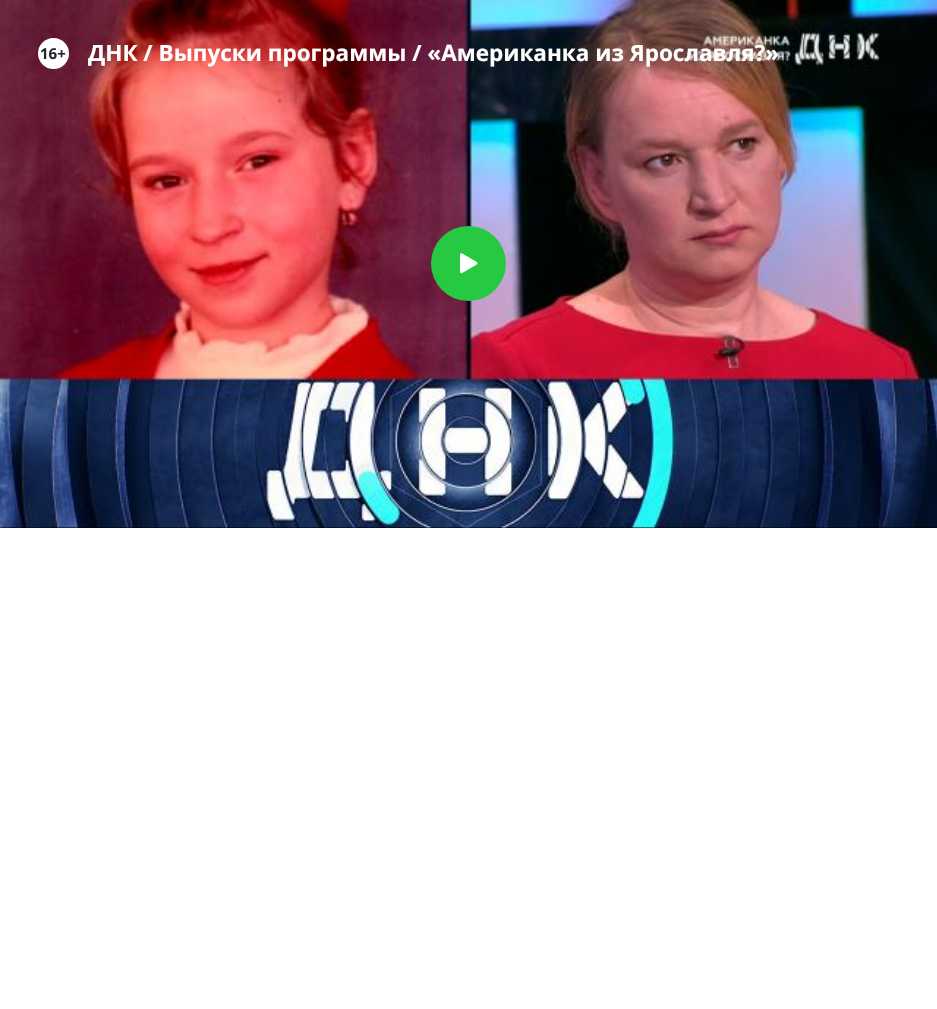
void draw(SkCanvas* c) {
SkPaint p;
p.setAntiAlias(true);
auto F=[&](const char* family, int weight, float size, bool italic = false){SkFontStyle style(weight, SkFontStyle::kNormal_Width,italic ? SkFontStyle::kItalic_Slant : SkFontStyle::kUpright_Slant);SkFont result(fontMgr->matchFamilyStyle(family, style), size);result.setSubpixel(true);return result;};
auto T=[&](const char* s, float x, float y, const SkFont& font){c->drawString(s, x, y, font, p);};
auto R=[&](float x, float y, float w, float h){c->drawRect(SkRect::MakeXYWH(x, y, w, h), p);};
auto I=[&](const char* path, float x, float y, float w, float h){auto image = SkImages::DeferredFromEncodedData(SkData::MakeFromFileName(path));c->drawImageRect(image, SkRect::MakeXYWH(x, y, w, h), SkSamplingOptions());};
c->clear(0xffffffff);
p.setColor(0xff000000);
R(0,527,937,1);
I("1.png",0,0,937,528);
p.setColor(0xffffffff);
c->drawCircle(53.5,53.5,15.5,p);
auto f1 = F("Open Sans",700,15);
p.setColor(0xff252832);
T("16+",40,59,f1);
c->save();
c->clipRect(SkRect::MakeXYWH(88,38,691,31));
auto f2 = F("Open Sans",700,22.5);
p.setColor(0xffffffff);
T("ДНК / Выпуски программы / «Американка из Ярославля?»",88,61,f2);
c->restore();
p.setColor(0xff27c942);
c->drawCircle(468.5,263.5,37.5,p);
I("2.png",460,253,18,21);
}
